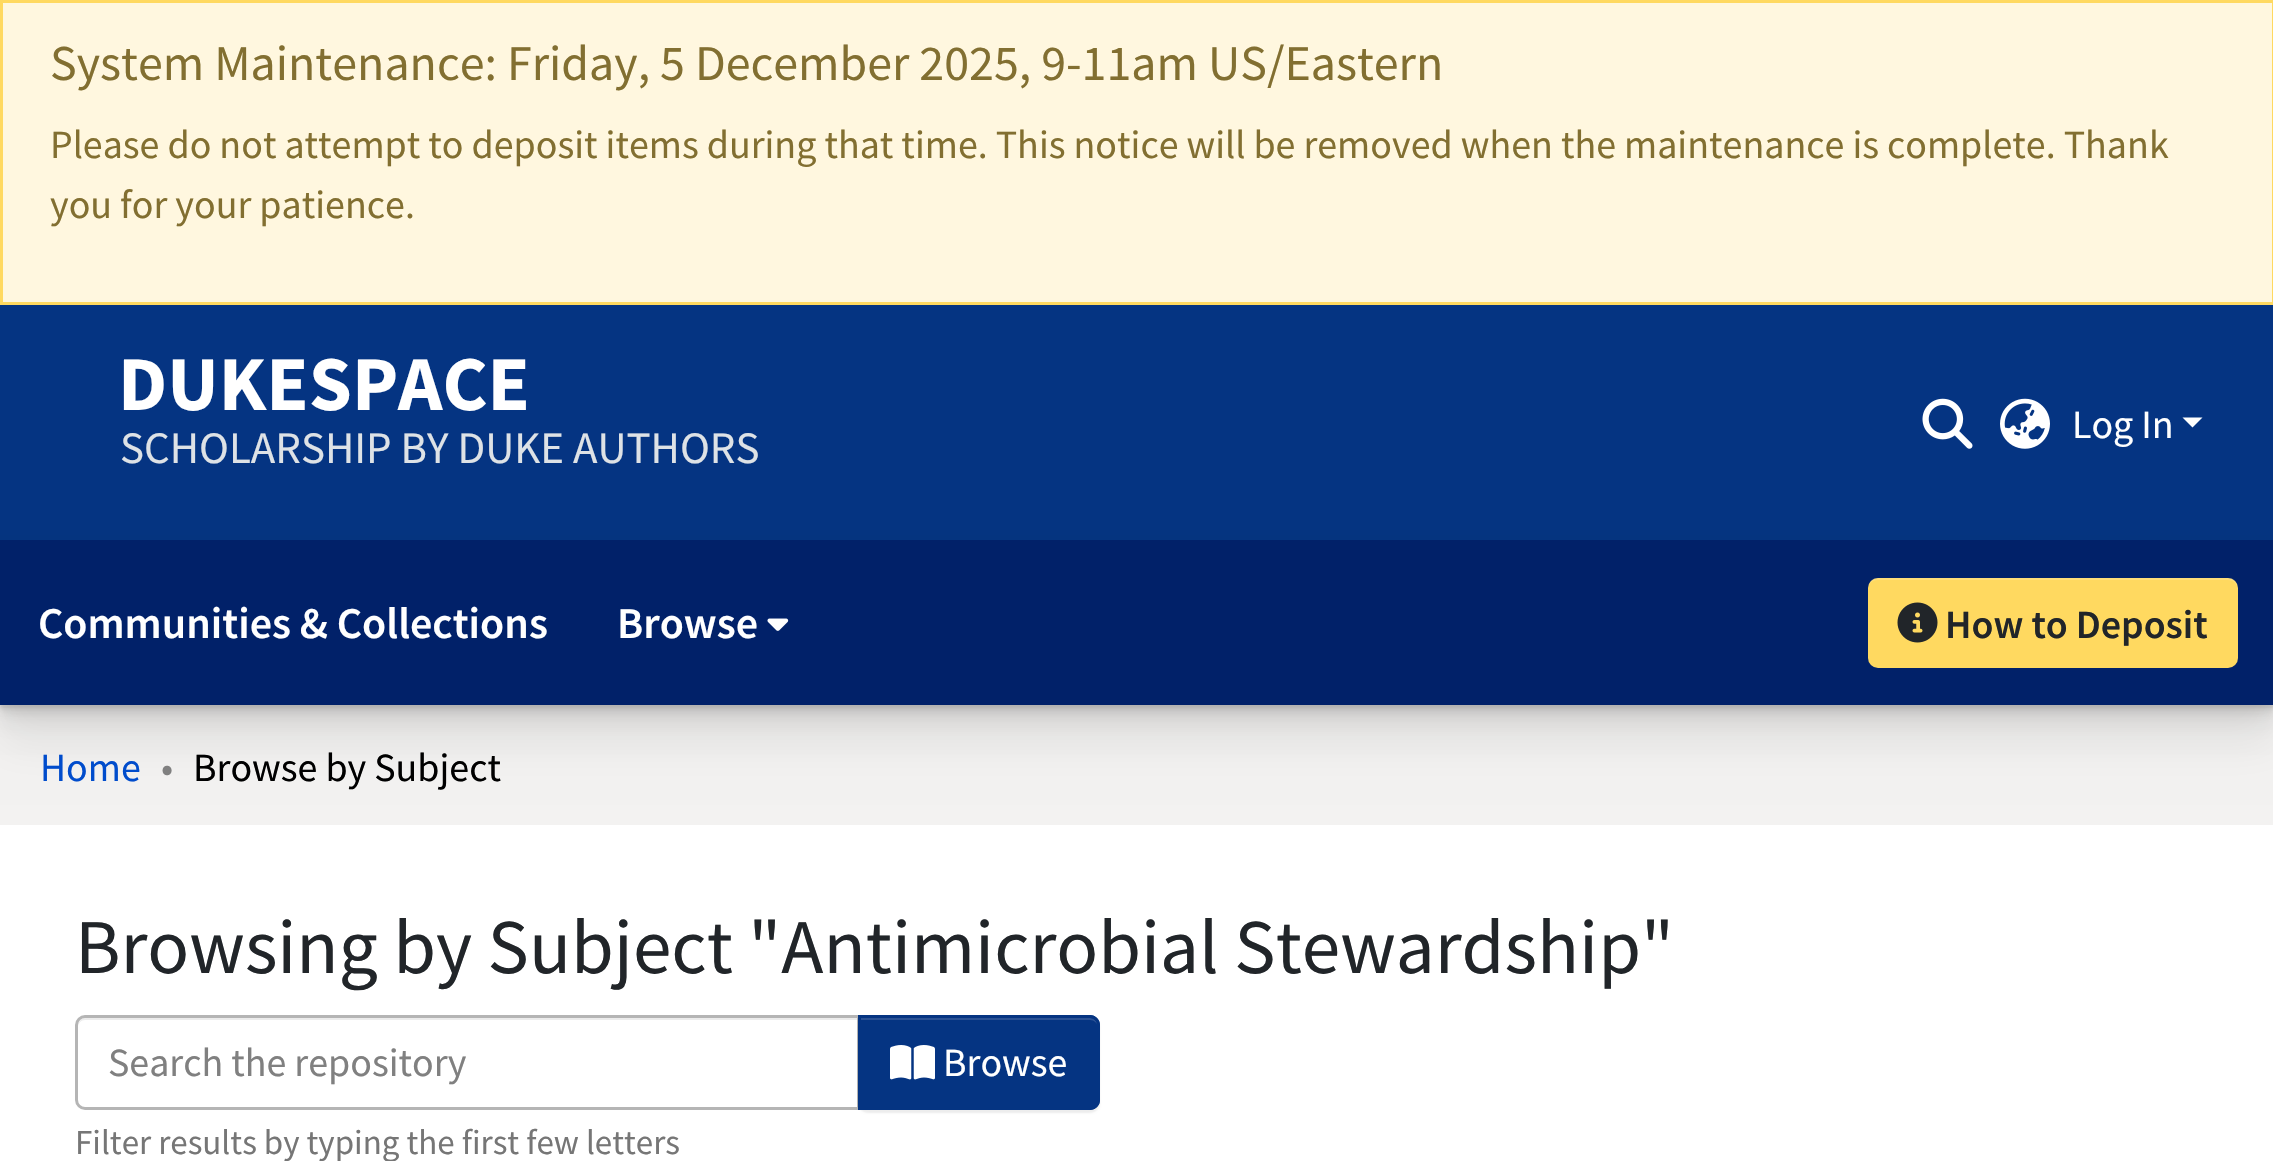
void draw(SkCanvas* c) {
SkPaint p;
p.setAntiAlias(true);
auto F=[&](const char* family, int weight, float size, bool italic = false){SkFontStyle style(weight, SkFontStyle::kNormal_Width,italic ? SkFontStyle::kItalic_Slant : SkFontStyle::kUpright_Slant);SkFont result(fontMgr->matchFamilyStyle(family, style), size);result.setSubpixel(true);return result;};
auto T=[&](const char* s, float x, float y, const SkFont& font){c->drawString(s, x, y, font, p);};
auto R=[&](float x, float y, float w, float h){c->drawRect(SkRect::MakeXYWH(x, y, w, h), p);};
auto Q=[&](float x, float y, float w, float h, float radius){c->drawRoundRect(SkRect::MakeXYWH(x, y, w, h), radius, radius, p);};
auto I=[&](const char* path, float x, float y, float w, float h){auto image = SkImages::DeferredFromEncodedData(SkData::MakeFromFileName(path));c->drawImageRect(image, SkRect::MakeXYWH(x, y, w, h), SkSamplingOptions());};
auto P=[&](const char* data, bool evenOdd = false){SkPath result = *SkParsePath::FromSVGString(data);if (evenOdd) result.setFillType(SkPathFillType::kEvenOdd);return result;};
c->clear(0xfff3f2f1);
p.setColor(0xfffff7df);
c->drawRect(SkRect::MakeXYWH(1.5,1.5,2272,302),p);
p.setStroke(true);
p.setStrokeWidth(3);
p.setColor(0xffffd960);
c->drawRect(SkRect::MakeXYWH(1.5,1.5,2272,302),p);
auto f1 = F("Source Sans Pro",400,50);
p.setStroke(false);
p.setColor(0xff826f31);
T("System Maintenance: Friday, 5 December 2025, 9-11am US/Eastern",50,80,f1);
auto f2 = F("Source Sans Pro",400,40);
T("Please do not attempt to deposit items during that time. This notice will be removed when the maintenance is complete. Thank",50,158,f2);
T("you for your patience.",50,218,f2);
p.setColor(0xff053482);
R(0,305,2273,235);
auto f3 = F("Source Sans Pro",700,77.5);
p.setColor(0xffffffff);
T("DUKESPACE",118,410,f3);
auto f4 = F("Source Sans Pro",400,45);
p.setColor(0xffdee2e6);
T("SCHOLARSHIP BY DUKE AUTHORS",120,463,f4);
I("1.png",1922,398,51,51);
I("2.png",2000,398,50,51);
p.setColor(0xffffffff);
T("Log In",2072,438,f2);
c->drawPath(P("M2182.5 417.5h20l-10 10z"),p);
p.setColor(0x0f000000);
p.setMaskFilter(SkMaskFilter::MakeBlur(kNormal_SkBlurStyle, 20));
c->drawRect(SkRect::MakeXYWH(0,580,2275,165),p);
p.setMaskFilter(nullptr);
p.setMaskFilter(SkMaskFilter::MakeBlur(kNormal_SkBlurStyle, 10));
c->drawRect(SkRect::MakeXYWH(0,560,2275,165),p);
p.setMaskFilter(nullptr);
p.setMaskFilter(SkMaskFilter::MakeBlur(kNormal_SkBlurStyle, 5));
c->drawRect(SkRect::MakeXYWH(0,550,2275,165),p);
p.setMaskFilter(nullptr);
p.setMaskFilter(SkMaskFilter::MakeBlur(kNormal_SkBlurStyle, 2.5));
c->drawRect(SkRect::MakeXYWH(0,545,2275,165),p);
p.setMaskFilter(nullptr);
p.setMaskFilter(SkMaskFilter::MakeBlur(kNormal_SkBlurStyle, 1));
c->drawRect(SkRect::MakeXYWH(0,543,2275,165),p);
p.setMaskFilter(nullptr);
p.setColor(0xff012169);
R(0,540,2273,165);
auto f5 = F("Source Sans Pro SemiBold",600,44);
p.setColor(0xffffffff);
T("Communities & Collections",38,638,f5);
T("Browse",617,638,f5);
I("3.png",767,618,22,13);
p.setColor(0xffffd960);
Q(1868,578,370,90,10);
p.setColor(0x26ffffff);
c->drawPath(P("M1878 580h350c5 0 10 4 10 10c0-5-2-11-8-12h-354c-6 1-8 7-8 12c0-6 4-10 10-10z"),p);
I("4.png",1897,602,41,41);
auto f6 = F("Source Sans Pro SemiBold",600,40);
p.setColor(0xff212529);
T("How to Deposit",1945,638,f6);
p.setColor(0xff004ccc);
T("Home",40,781,f2);
p.setColor(0xff808080);
T("•",161,781,f2);
p.setColor(0xff000000);
T("Browse by Subject",193,781,f2);
p.setColor(0xffffffff);
R(0,825,2273,336);
auto f7 = F("Source Sans Pro",400,77.4);
p.setColor(0xff212529);
T("Browsing by Subject \"Antimicrobial Stewardship\"",75,973,f7);
p.setColor(0xffececec);
c->drawPath(P("M85 1020h773v-2h-772c-6 0-8 5-8 10c0-5 3-8 7-8z"),p);
p.setStroke(true);
p.setColor(0xffb5b5b5);
c->drawPath(P("M85 1016.5h773.5v92h-773.5c-4.5 0-8.5-4-8.5-8.5v-75c0-4.5 4-8.5 8.5-8.5z"),p);
p.setStroke(false);
p.setColor(0xff808080);
T("Search the repository",108,1076,f2);
p.setColor(0x12000000);
p.setMaskFilter(SkMaskFilter::MakeBlur(kNormal_SkBlurStyle, 1));
c->drawRoundRect(SkRect::MakeXYWH(858,1018,242,95),10,10,p);
p.setMaskFilter(nullptr);
p.setColor(0xff053482);
c->drawPath(P("M858 1015h232c5.5 0 10 4.5 10 10v75c0 5.5-4.5 10-10 10h-232z"),p);
p.setColor(0xff2b5295);
c->drawPath(P("M860 1020h230c4 0 8 3 8 8v-2c0-4-4-8-8-8h-230z"),p);
p.setStroke(true);
p.setColor(0xff053482);
c->drawPath(P("M859.5 1016.5h230.5c4.5 0 8.5 4 8.5 8.5v75c0 4.5-4 8.5-8.5 8.5h-230.5z"),p);
I("5.png",890,1045,45,35);
p.setStroke(false);
p.setColor(0xffffffff);
T("Browse",943,1076,f2);
auto f8 = F("Source Sans Pro",400,35);
p.setColor(0xff767676);
T("Filter results by typing the first few letters",75,1154,f8);
}
